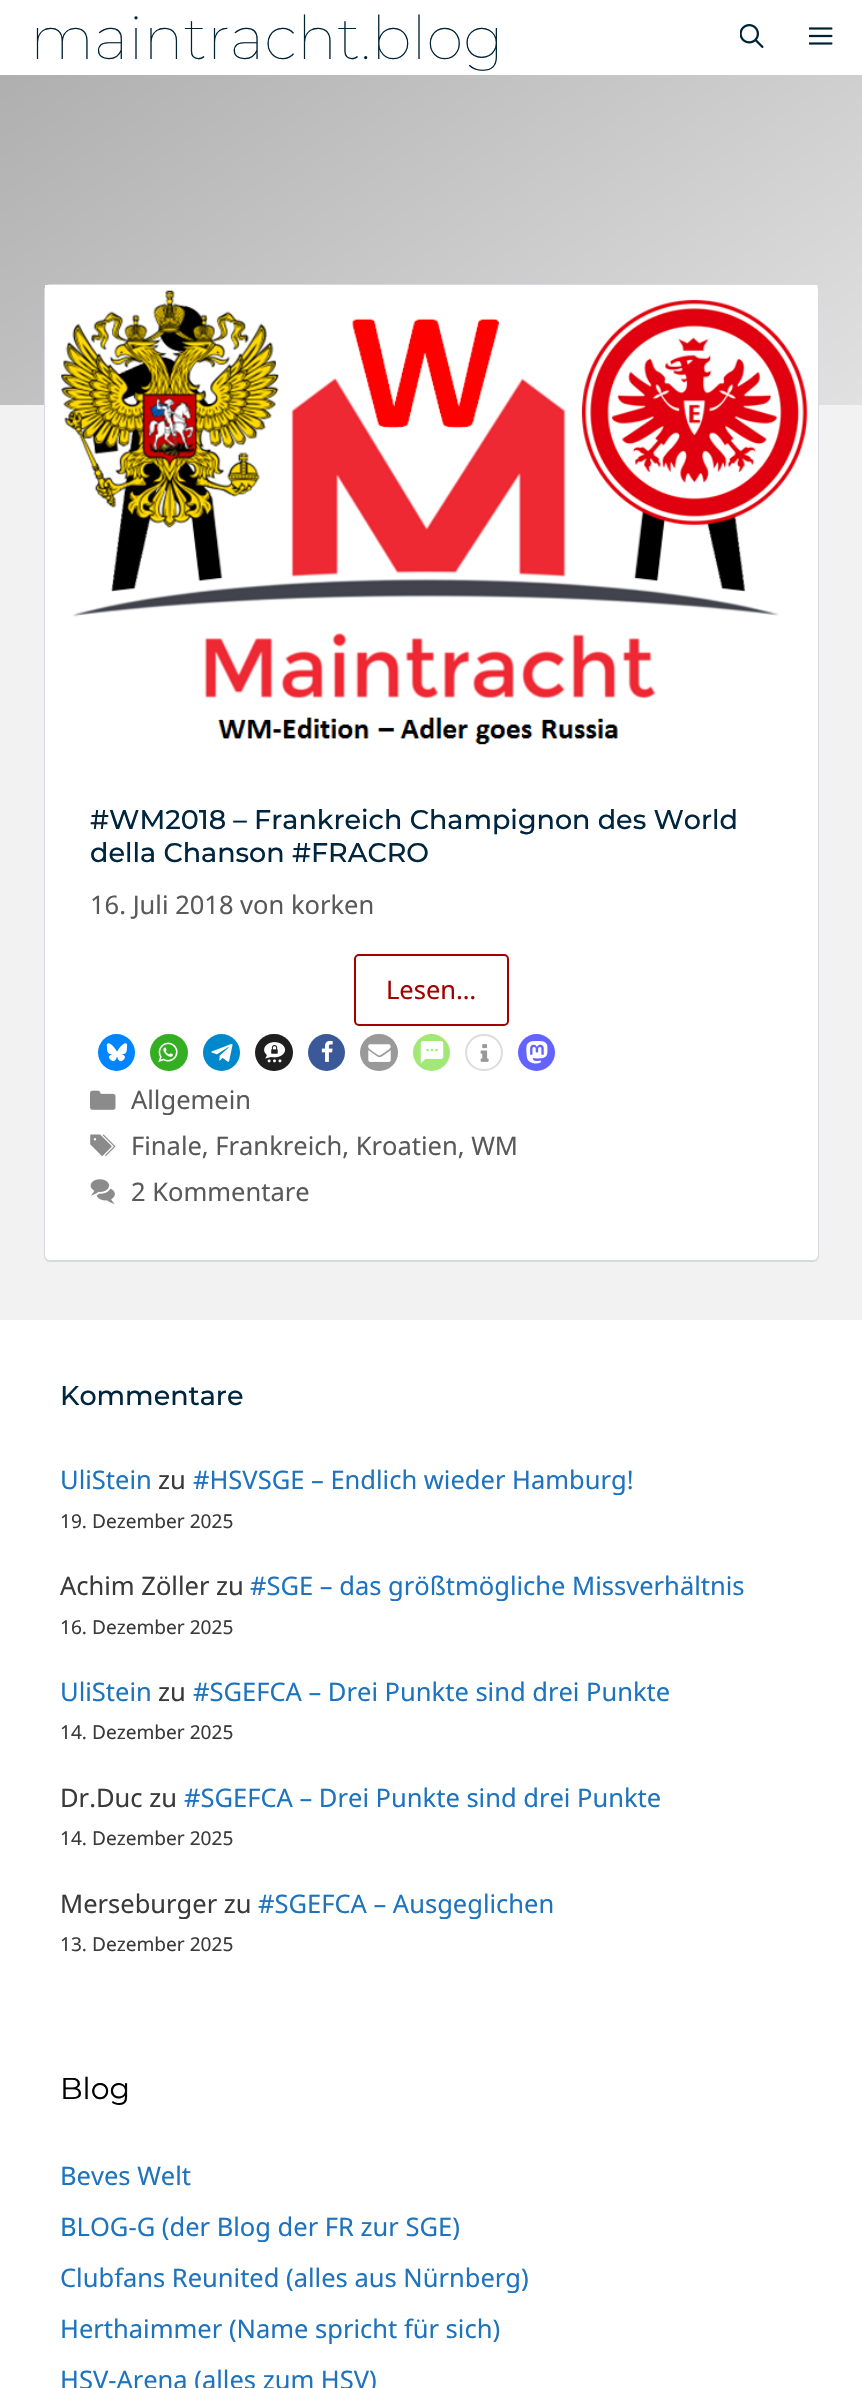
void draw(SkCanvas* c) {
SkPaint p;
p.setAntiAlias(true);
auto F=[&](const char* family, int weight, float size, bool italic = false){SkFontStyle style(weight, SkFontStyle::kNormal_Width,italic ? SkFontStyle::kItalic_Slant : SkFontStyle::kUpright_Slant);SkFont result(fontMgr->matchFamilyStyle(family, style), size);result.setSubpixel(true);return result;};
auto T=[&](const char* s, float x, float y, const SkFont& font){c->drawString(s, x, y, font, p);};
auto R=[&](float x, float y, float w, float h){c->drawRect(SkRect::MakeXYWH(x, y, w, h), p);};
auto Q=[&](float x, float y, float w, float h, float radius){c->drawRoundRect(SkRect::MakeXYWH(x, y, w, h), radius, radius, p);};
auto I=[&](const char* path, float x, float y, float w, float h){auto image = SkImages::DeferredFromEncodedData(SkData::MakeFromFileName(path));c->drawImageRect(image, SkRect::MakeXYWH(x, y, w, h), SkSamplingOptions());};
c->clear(0xfff2f2f2);
p.setColor(0xffffffff);
R(0,0,862,75);
auto f1 = F("Montserrat",100,60);
p.setColor(0xff002236);
T("maintracht.blog",30,59,f1);
I("1.png",740,24,24,24);
I("2.png",809,27,24,18);
{
const SkColor colors[] = {0xffafafaf,0xffe1e1e1};
const float stops[] = {0,1};
const SkPoint ends[] = {{212,-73}, {651,553}};
p.setShader(SkGradientShader::MakeLinear(ends, colors, stops, 2, SkTileMode::kClamp));
p.setAlpha(255);
}
R(0,75,862,330);
p.setStroke(true);
p.setStrokeWidth(2);
p.setShader(nullptr);
p.setColor(0xffd6dade);
c->drawRoundRect(SkRect::MakeXYWH(45,285,773,976),5,5,p);
p.setStroke(false);
p.setColor(0xffffffff);
Q(45,285,773,975,5);
I("3.png",45,285,773,460);
auto f2 = F("Montserrat",500,27);
p.setColor(0xff00253e);
T("#WM2018 – Frankreich Champignon des World",90,829,f2);
T("della Chanson #FRACRO",90,862,f2);
auto f3 = F("Noto Sans",400,25.5);
p.setColor(0xff595959);
T("16. Juli 2018 von korken",90,914,f3);
p.setStroke(true);
p.setColor(0xffa30000);
c->drawRoundRect(SkRect::MakeXYWH(355,955,153,70),4,4,p);
p.setStroke(false);
T("Lesen…",386,999,f3);
p.setColor(0xff0085ff);
c->drawCircle(116.5,1052.5,18.5,p);
I("4.png",106,1043,22,19);
p.setColor(0xff34af23);
Q(150,1034,38,37,18.5);
I("5.png",158,1042,20,20);
p.setColor(0xff0088cc);
c->drawCircle(221.5,1052.5,18.5,p);
I("6.png",211,1043,22,19);
p.setColor(0xff1f1f1f);
Q(255,1034,38,37,18.5);
I("7.png",264,1042,22,21);
p.setColor(0xff3b5998);
c->drawCircle(326.5,1052.5,18.5,p);
I("8.png",321,1040,12,22);
p.setColor(0xff999999);
Q(360,1034,38,37,18.5);
I("9.png",368,1044,23,18);
p.setColor(0xffa1e877);
c->drawCircle(431.5,1052.5,18.5,p);
I("10.png",420,1041,24,23);
p.setStroke(true);
p.setColor(0xffdddddd);
c->drawRoundRect(SkRect::MakeXYWH(466,1035,36,35),17.5,17.5,p);
I("11.png",480,1044,9,18);
p.setStroke(false);
p.setColor(0xff6364ff);
c->drawCircle(536.5,1052.5,18.5,p);
I("12.png",526,1041,22,23);
I("13.png",90,1090,26,20);
p.setColor(0xff595959);
T("Allgemein",131,1109,f3);
I("14.png",90,1134,26,22);
T("Finale, Frankreich, Kroatien, WM",131,1155,f3);
I("15.png",90,1179,25,26);
T("2 Kommentare",131,1201,f3);
p.setColor(0xffffffff);
R(0,1320,862,1068);
p.setColor(0xff00253e);
T("Kommentare",60,1405,f2);
p.setColor(0xff1e73be);
T("UliStein",60,1489,f3);
p.setColor(0xff3a3a3a);
T("zu",158,1489,f3);
p.setColor(0xff1e73be);
T("#HSVSGE – Endlich wieder Hamburg!",193,1489,f3);
auto f4 = F("Noto Sans",400,19.1);
p.setColor(0xff3a3a3a);
T("19. Dezember 2025",60,1528,f4);
T("Achim Zöller zu",60,1595,f3);
p.setColor(0xff1e73be);
T("#SGE – das größtmögliche Missverhältnis",250,1595,f3);
p.setColor(0xff3a3a3a);
T("16. Dezember 2025",60,1634,f4);
p.setColor(0xff1e73be);
T("UliStein",60,1701,f3);
p.setColor(0xff3a3a3a);
T("zu",158,1701,f3);
p.setColor(0xff1e73be);
T("#SGEFCA – Drei Punkte sind drei Punkte",193,1701,f3);
p.setColor(0xff3a3a3a);
T("14. Dezember 2025",60,1739,f4);
T("Dr.Duc zu",60,1807,f3);
p.setColor(0xff1e73be);
T("#SGEFCA – Drei Punkte sind drei Punkte",184,1807,f3);
p.setColor(0xff3a3a3a);
T("14. Dezember 2025",60,1845,f4);
T("Merseburger zu",60,1913,f3);
p.setColor(0xff1e73be);
T("#SGEFCA – Ausgeglichen",258,1913,f3);
p.setColor(0xff3a3a3a);
T("13. Dezember 2025",60,1951,f4);
auto f5 = F("Montserrat",400,30);
p.setColor(0xff000000);
T("Blog",60,2099,f5);
p.setColor(0xff1e73be);
T("Beves Welt",60,2185,f3);
T("BLOG-G (der Blog der FR zur SGE)",60,2236,f3);
T("Clubfans Reunited (alles aus Nürnberg)",60,2287,f3);
T("Herthaimmer (Name spricht für sich)",60,2338,f3);
T("HSV-Arena (alles zum HSV)",60,2389,f3);
}
